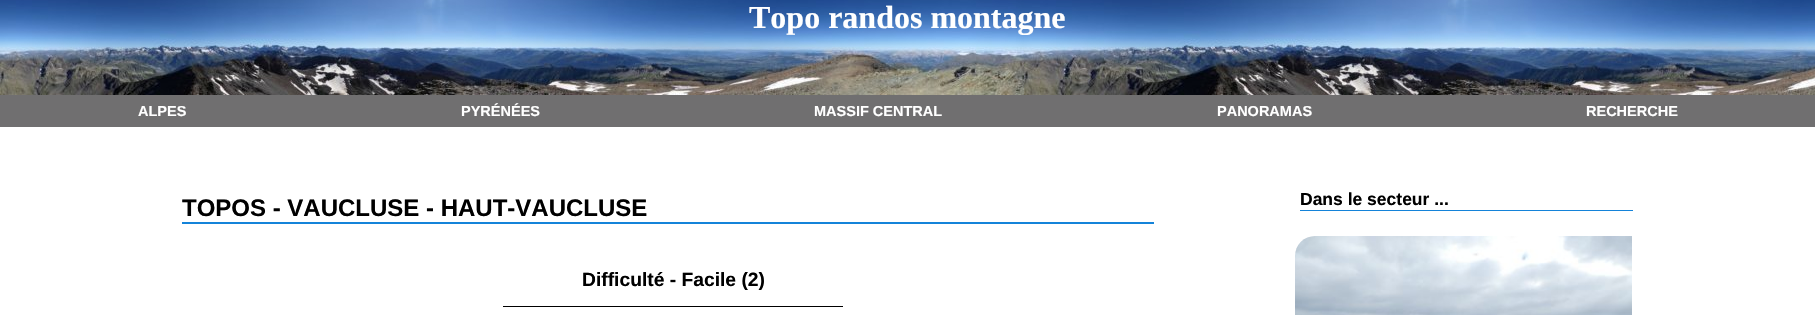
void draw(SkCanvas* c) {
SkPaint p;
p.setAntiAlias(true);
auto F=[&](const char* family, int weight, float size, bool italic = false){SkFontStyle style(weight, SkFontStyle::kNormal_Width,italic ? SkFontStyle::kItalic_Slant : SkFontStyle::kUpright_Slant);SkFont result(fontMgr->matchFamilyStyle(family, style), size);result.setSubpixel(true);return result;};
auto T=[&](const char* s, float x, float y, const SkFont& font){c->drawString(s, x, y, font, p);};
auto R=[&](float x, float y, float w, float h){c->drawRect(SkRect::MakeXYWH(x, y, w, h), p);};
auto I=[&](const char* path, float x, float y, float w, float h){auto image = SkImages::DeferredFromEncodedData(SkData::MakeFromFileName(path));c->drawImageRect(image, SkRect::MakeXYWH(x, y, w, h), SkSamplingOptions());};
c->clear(0xffffffff);
I("1.png",0,0,1815,95);
auto f1 = F("Liberation Serif",700,32);
p.setColor(0xffffffff);
T("Topo randos montagne",749,28,f1);
p.setColor(0xff706f70);
R(0,95,1815,32);
auto f2 = F("Liberation Sans",700,14.5);
p.setColor(0xffffffff);
T("ALPES",138,116,f2);
T("PYRÉNÉES",461,116,f2);
T("MASSIF CENTRAL",814,116,f2);
T("PANORAMAS",1217,116,f2);
T("RECHERCHE",1586,116,f2);
p.setColor(0xff1483d9);
R(182,222,972,2);
auto f3 = F("Liberation Sans",700,24);
p.setColor(0xff000000);
T("TOPOS - VAUCLUSE - HAUT-VAUCLUSE",182,216,f3);
R(503,306,340,1);
auto f4 = F("Liberation Sans",700,19.25);
T("Difficulté - Facile (2)",582,286,f4);
p.setColor(0xff1483d9);
R(1300,210,333,1);
auto f5 = F("Liberation Sans",700,17.5);
p.setColor(0xff000000);
T("Dans le secteur ...",1300,205,f5);
I("2.png",1295,236,337,79);
}
